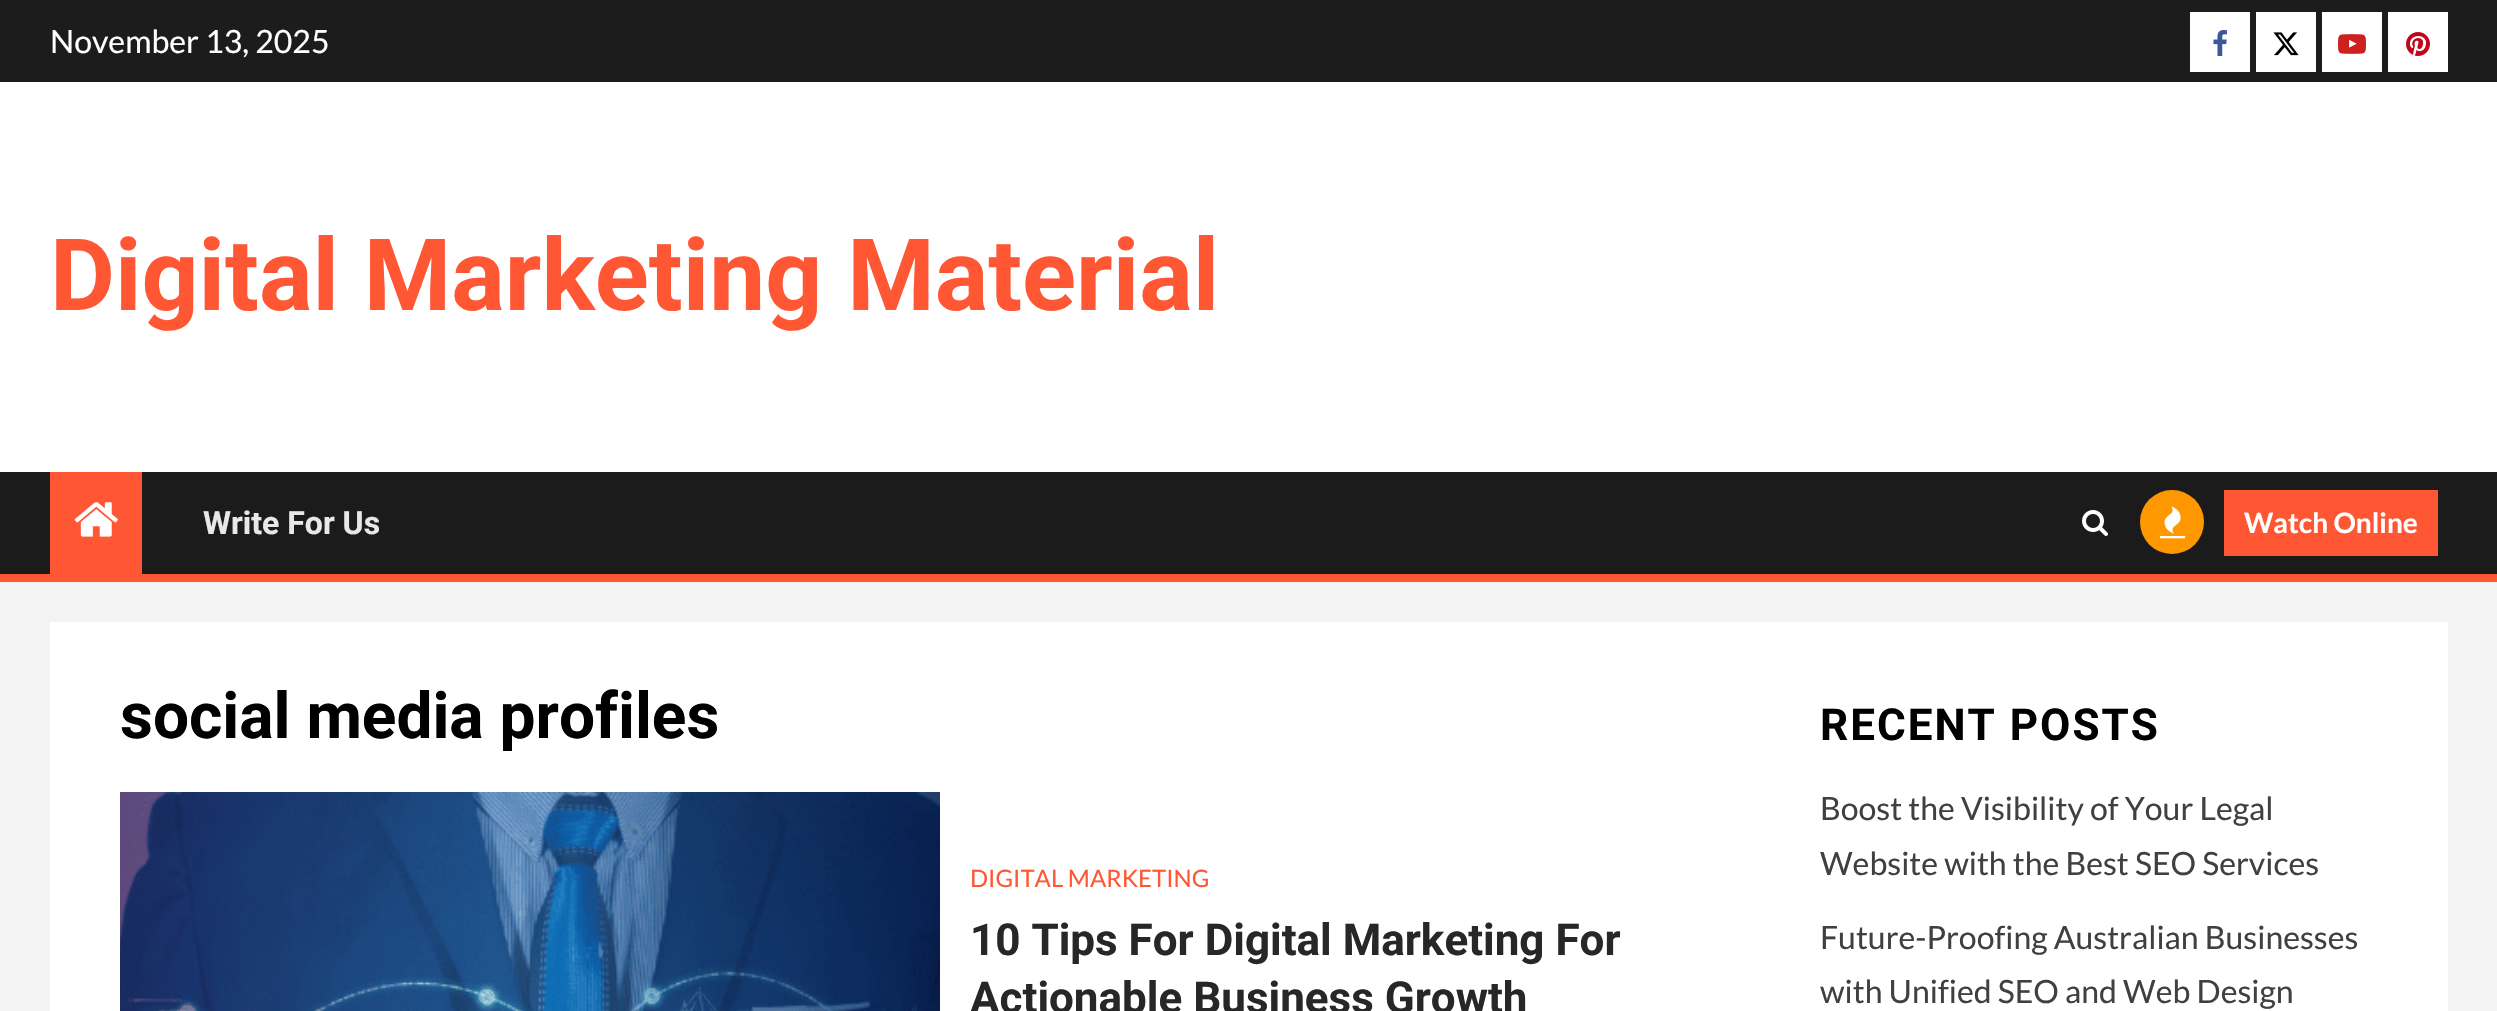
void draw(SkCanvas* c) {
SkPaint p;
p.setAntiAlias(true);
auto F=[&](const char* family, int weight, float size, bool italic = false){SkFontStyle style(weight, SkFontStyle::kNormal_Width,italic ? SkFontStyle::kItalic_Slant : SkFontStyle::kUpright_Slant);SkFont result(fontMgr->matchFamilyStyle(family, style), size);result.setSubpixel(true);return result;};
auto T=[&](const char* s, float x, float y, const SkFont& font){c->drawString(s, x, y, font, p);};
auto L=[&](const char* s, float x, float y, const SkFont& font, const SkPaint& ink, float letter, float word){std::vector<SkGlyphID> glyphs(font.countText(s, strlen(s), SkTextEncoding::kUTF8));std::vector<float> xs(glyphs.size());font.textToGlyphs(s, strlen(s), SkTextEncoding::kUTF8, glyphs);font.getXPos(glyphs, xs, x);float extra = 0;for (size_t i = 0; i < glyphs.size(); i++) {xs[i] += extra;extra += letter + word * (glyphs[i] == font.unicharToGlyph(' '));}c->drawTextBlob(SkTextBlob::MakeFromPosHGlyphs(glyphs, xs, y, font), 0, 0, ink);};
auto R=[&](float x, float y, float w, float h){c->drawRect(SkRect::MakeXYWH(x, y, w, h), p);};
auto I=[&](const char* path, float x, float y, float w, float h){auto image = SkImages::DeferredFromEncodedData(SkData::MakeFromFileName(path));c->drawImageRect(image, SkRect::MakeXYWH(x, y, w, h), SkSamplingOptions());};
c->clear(0xfff3f3f3);
p.setColor(0xffffffff);
R(0,82,2497,390);
p.setColor(0xff1c1c1c);
R(0,0,2497,82);
auto f1 = F("Lato",400,32);
p.setColor(0xffffffff);
T("November 13, 2025",50,53,f1);
R(2190,12,60,60);
I("1.png",2213,30,14,26);
R(2256,12,60,60);
I("2.png",2273,32,26,24);
R(2322,12,60,60);
I("3.png",2338,34,28,20);
R(2388,12,60,60);
I("4.png",2406,32,24,24);
auto f2 = F("Roboto",700,100);
p.setColor(0xffff5733);
T("Digital Marketing Material",50,310,f2);
p.setColor(0xff1b1b1b);
R(0,472,2497,102);
p.setColor(0xffff5733);
R(0,574,2497,8);
R(50,472,92,102);
I("5.png",74,502,44,35);
auto f3 = F("Roboto",700,32);
p.setColor(0xffe8e8e8);
T("Write For Us",203,534,f3);
I("6.png",2082,510,26,26);
p.setColor(0xffff9800);
c->drawCircle(2172,522,32,p);
I("7.png",2160,506,26,33);
p.setColor(0xffff5733);
R(2224,490,214,66);
auto f4 = F("Lato",700,28);
p.setColor(0xffffffff);
T("Watch Online",2244,533,f4);
R(50,622,2398,389);
auto f5 = F("Roboto",700,64);
p.setColor(0xff000000);
T("social media profiles",120,738,f5);
I("8.png",120,792,820,219);
auto f6 = F("Lato",400,24);
p.setColor(0xffff5733);
T("DIGITAL MARKETING",970,887,f6);
auto f7 = F("Roboto",700,44);
p.setColor(0xff272727);
T("10 Tips For Digital Marketing For",970,955,f7);
T("Actionable Business Growth",970,1013,f7);
p.setColor(0xff000000);
L("RECENT POSTS",1820,740,f7,p,2,0);
p.setColor(0xff404040);
T("Boost the Visibility of Your Legal",1820,820,f1);
T("Website with the Best SEO Services",1820,875,f1);
T("Future-Proofing Australian Businesses",1820,949,f1);
T("with Unified SEO and Web Design",1820,1003,f1);
}
